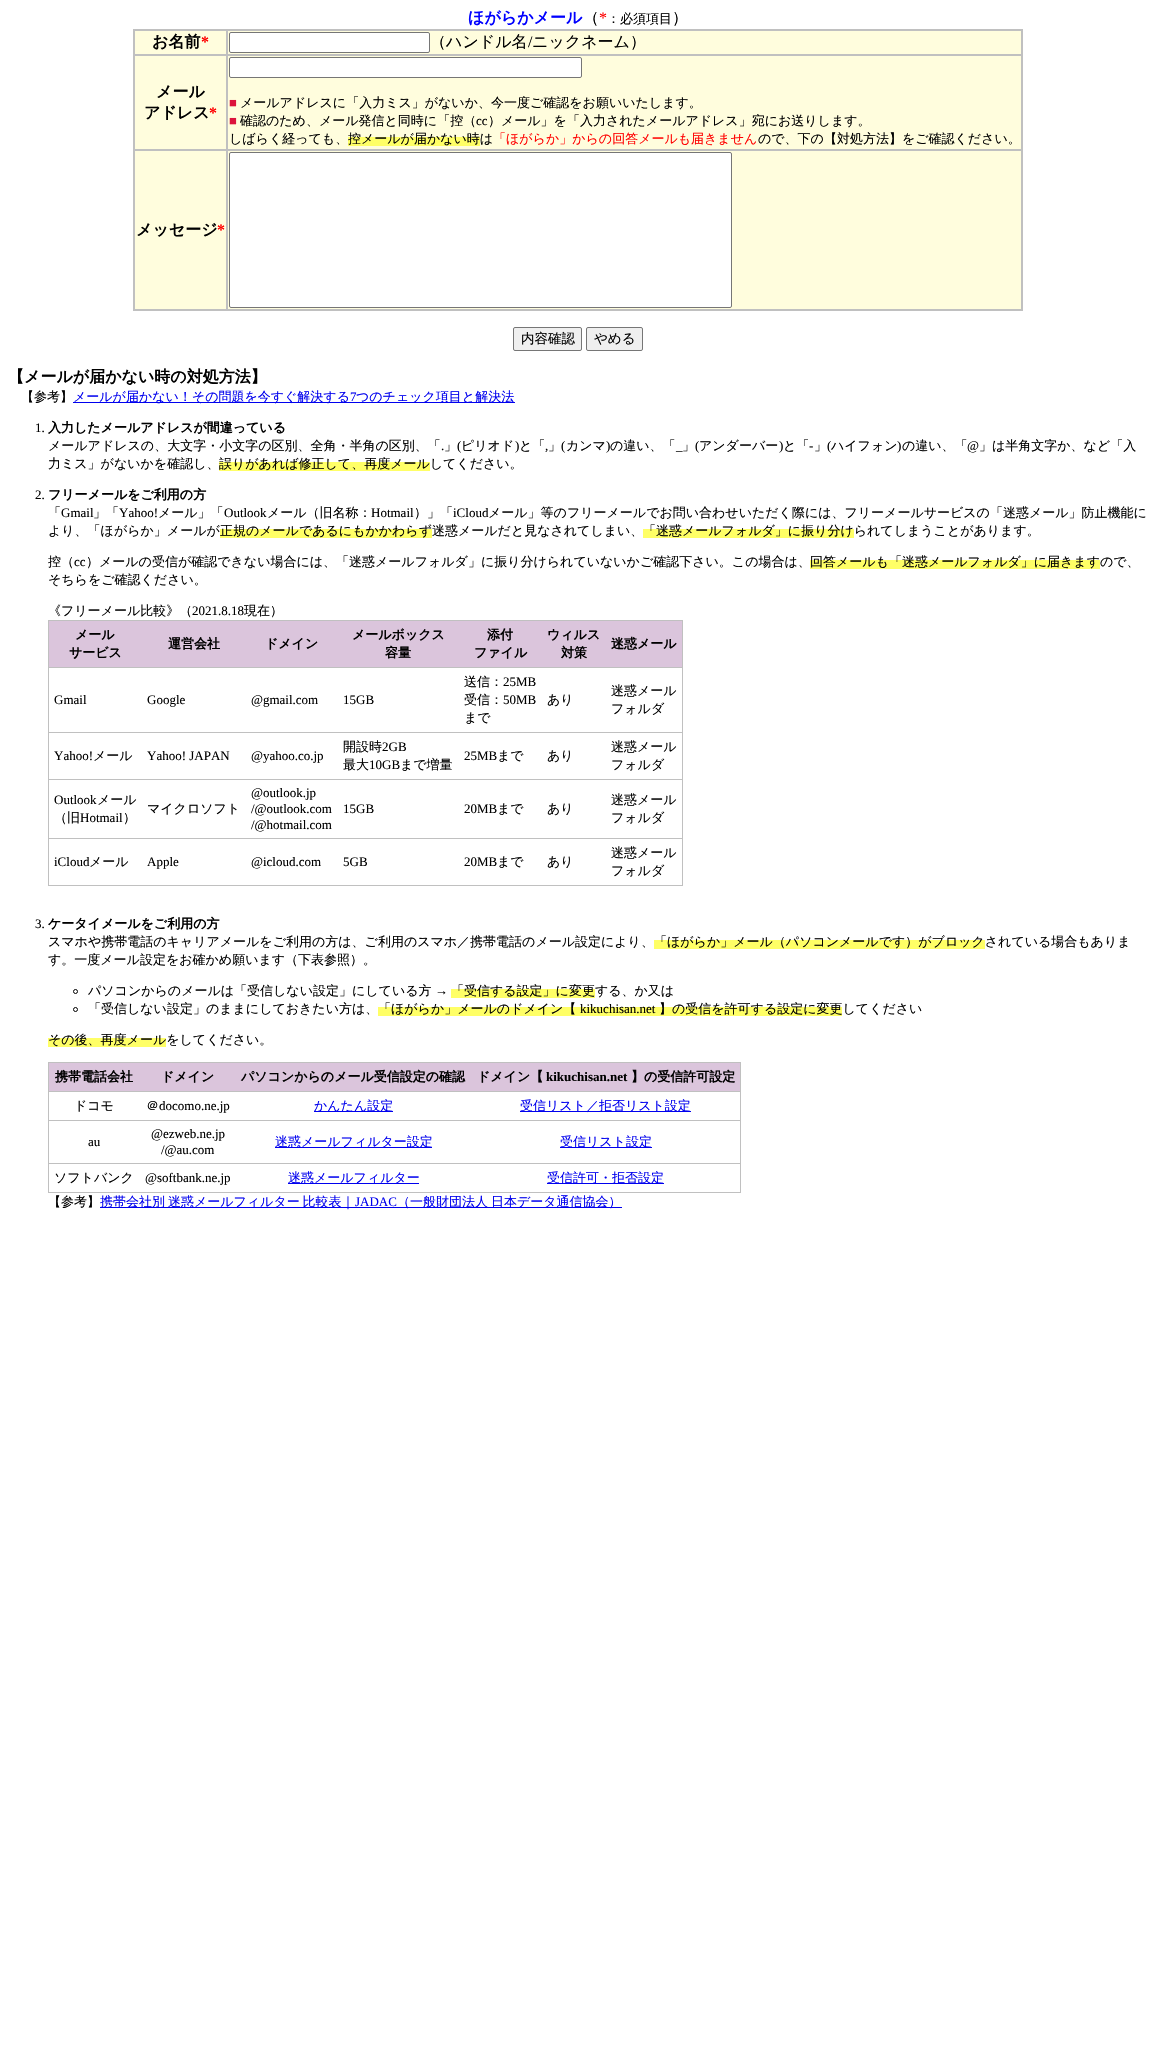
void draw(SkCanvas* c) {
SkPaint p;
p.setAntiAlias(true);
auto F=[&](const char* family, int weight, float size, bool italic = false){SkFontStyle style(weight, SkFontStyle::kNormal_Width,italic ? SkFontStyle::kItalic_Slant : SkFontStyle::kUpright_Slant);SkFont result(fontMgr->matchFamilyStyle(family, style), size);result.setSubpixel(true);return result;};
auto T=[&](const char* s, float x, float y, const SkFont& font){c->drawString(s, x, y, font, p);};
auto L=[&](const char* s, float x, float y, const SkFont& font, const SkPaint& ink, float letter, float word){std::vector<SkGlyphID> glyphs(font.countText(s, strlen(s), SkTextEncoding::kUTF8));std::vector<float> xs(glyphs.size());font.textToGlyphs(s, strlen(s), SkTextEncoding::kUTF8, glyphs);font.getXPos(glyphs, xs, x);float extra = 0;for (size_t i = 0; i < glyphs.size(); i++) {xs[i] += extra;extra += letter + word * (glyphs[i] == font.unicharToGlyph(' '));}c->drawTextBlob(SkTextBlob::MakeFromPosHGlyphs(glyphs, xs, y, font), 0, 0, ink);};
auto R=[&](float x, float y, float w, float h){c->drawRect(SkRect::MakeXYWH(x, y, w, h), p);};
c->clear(0xffffffff);
auto f1 = F("WenQuanYi Zen Hei",700,16);
p.setColor(0xff0000ff);
T("ほがらかメール",468,23,f1);
auto f2 = F("WenQuanYi Zen Hei",500,16);
p.setColor(0xff000000);
T("（",583,23,f2);
auto f3 = F("Liberation Serif",400,16);
p.setColor(0xffff0000);
T("*",599,23,f3);
auto f4 = F("WenQuanYi Zen Hei",500,13);
p.setColor(0xff000000);
T("：必須項目",607,23,f4);
T("）",672,23,f2);
p.setColor(0xfffffddd);
R(135,31,886,278);
p.setStroke(true);
p.setStrokeWidth(1);
p.setColor(0xffc0c0c0);
c->drawRect(SkRect::MakeXYWH(133.5,29.5,889,281),p);
c->drawRect(SkRect::MakeXYWH(134.5,30.5,92,24),p);
p.setStroke(false);
p.setColor(0xff000000);
T("お名前",152,47,f1);
auto f5 = F("Liberation Serif",700,16);
p.setColor(0xffff0000);
T("*",201,47,f5);
p.setStroke(true);
p.setColor(0xffc0c0c0);
c->drawRect(SkRect::MakeXYWH(227.5,30.5,794,24),p);
p.setStroke(false);
p.setColor(0xffffffff);
c->drawRoundRect(SkRect::MakeXYWH(229.5,32.5,200,20),1.5,1.5,p);
p.setStroke(true);
p.setColor(0xff767676);
c->drawRoundRect(SkRect::MakeXYWH(229.5,32.5,200,20),1.5,1.5,p);
p.setStroke(false);
p.setColor(0xff000000);
T("（ハンドル名",430,47,f2);
T("/",528,47,f3);
T("ニックネーム）",532,47,f2);
p.setStroke(true);
p.setColor(0xffc0c0c0);
c->drawRect(SkRect::MakeXYWH(134.5,55.5,92,94),p);
p.setStroke(false);
p.setColor(0xff000000);
T("メール",156,97,f1);
T("アドレス",144,118,f1);
p.setColor(0xffff0000);
T("*",209,118,f5);
p.setStroke(true);
p.setColor(0xffc0c0c0);
c->drawRect(SkRect::MakeXYWH(227.5,55.5,794,94),p);
p.setStroke(false);
p.setColor(0xffffffff);
c->drawRoundRect(SkRect::MakeXYWH(229.5,57.5,352,20),1.5,1.5,p);
p.setStroke(true);
p.setColor(0xff767676);
c->drawRoundRect(SkRect::MakeXYWH(229.5,57.5,352,20),1.5,1.5,p);
auto f6 = F("Liberation Serif",400,13);
p.setStroke(false);
p.setColor(0xffdc143c);
T("■",229,107,f6);
p.setColor(0xff000000);
T("メールアドレスに「入力ミス」がないか、今一度ご確認をお願いいたします。",240,107,f4);
p.setColor(0xffdc143c);
T("■",229,125,f6);
p.setColor(0xff000000);
T("確認のため、メール発信と同時に「控（",240,125,f4);
T("cc",476,125,f6);
T("）メール」を「入力されたメールアドレス」宛にお送りします。",488,125,f4);
T("しばらく経っても、",229,143,f4);
p.setColor(0xffffff66);
R(348,137,132,9);
p.setColor(0xff000000);
T("控メールが届かない時は",348,143,f4);
p.setColor(0xffff0000);
T("「ほがらか」からの回答メールも届きません",493,143,f4);
p.setColor(0xff000000);
T("ので、下の【対処方法】をご確認ください。",758,143,f4);
p.setStroke(true);
p.setColor(0xffc0c0c0);
c->drawRect(SkRect::MakeXYWH(134.5,150.5,92,159),p);
p.setStroke(false);
p.setColor(0xff000000);
T("メッセージ",136,235,f1);
p.setColor(0xffff0000);
T("*",217,235,f5);
p.setStroke(true);
p.setColor(0xffc0c0c0);
c->drawRect(SkRect::MakeXYWH(227.5,150.5,794,159),p);
p.setStroke(false);
p.setColor(0xffffffff);
c->drawRoundRect(SkRect::MakeXYWH(229.5,152.5,502,155),1.5,1.5,p);
p.setStroke(true);
p.setColor(0xff767676);
c->drawRoundRect(SkRect::MakeXYWH(229.5,152.5,502,155),1.5,1.5,p);
p.setStroke(false);
p.setColor(0xffefefef);
c->drawRoundRect(SkRect::MakeXYWH(513.5,327.5,68,23),1.5,1.5,p);
p.setStroke(true);
p.setColor(0xff767676);
c->drawRoundRect(SkRect::MakeXYWH(513.5,327.5,68,23),1.5,1.5,p);
auto f7 = F("WenQuanYi Zen Hei",500,13.5);
p.setStroke(false);
p.setColor(0xff000000);
T("内容確認",521,343,f7);
p.setColor(0xffefefef);
c->drawRoundRect(SkRect::MakeXYWH(586.5,327.5,56,23),1.5,1.5,p);
p.setStroke(true);
p.setColor(0xff767676);
c->drawRoundRect(SkRect::MakeXYWH(586.5,327.5,56,23),1.5,1.5,p);
p.setStroke(false);
p.setColor(0xff000000);
T("やめる",594,343,f7);
T("【メールが届かない時の対処方法】",8,382,f1);
T("【参考】",21,401,f4);
p.setColor(0xff0000ee);
R(73,402,442,1);
T("メールが届かない！その問題を今すぐ解決する",73,401,f4);
T("7",350,401,f6);
T("つのチェック項目と解決法",356,401,f4);
p.setColor(0xff000000);
T("1.",35,432,f6);
auto f8 = F("WenQuanYi Zen Hei",700,13);
T("入力したメールアドレスが間違っている",48,432,f8);
T("メールアドレスの、大文字・小文字の区別、全角・半角の区別、「",48,450,f4);
T("」",444,450,f4);
T("(",457,450,f6);
T("ピリオド",461,450,f4);
T(")",515,450,f6);
T("と「",519,450,f4);
T("」",548,450,f4);
T("(",561,450,f6);
T("カンマ",566,450,f4);
T(")",606,450,f6);
T("の違い、「",610,450,f4);
T("」",682,450,f4);
T("(",695,450,f6);
T("アンダーバー",699,450,f4);
T(")",779,450,f6);
T("と「",783,450,f4);
T("-",809,450,f6);
T("」",814,450,f4);
T("(",827,450,f6);
T("ハイフォン",831,450,f4);
T(")",897,450,f6);
T("の違い、「",902,450,f4);
T("@",967,450,f6);
T("」は半角文字か、など「入",979,450,f4);
T(".",441,450,f6);
T(",",545,450,f6);
T("_",676,450,f6);
T("力ミス」がないかを確認し、",48,468,f4);
p.setColor(0xffffff66);
R(219,462,211,9);
p.setColor(0xff000000);
T("誤りがあれば修正して、再度メールしてください。",219,468,f4);
T("2.",35,499,f6);
T("フリーメールをご利用の方",48,499,f8);
T("「",48,517,f4);
T("Gmail",61,517,f6);
T("」「",93,517,f4);
T("Yahoo!",119,517,f6);
T("メール」「",158,517,f4);
T("Outlook",224,517,f6);
T("メール（旧名称：",267,517,f4);
T("Hotmail",371,517,f6);
T("）」「",414,517,f4);
T("iCloud",453,517,f6);
T("メール」等のフリーメールでお問い合わせいただく際には、フリーメールサービスの「迷惑メール」防止機能に",488,517,f4);
T("より、「ほがらか」メールが",48,535,f4);
p.setColor(0xffffff66);
R(220,529,212,9);
p.setColor(0xff000000);
T("正規のメールであるにもかかわらず迷惑メールだと見なされてしまい、",220,535,f4);
p.setColor(0xffffff66);
R(643,529,211,9);
p.setColor(0xff000000);
T("「迷惑メールフォルダ」に振り分けられてしまうことがあります。",643,535,f4);
T("控（",48,566,f4);
T("cc",74,566,f6);
T("）メールの受信が確認できない場合には、「迷惑メールフォルダ」に振り分けられていないかご確認下さい。この場合は、",86,566,f4);
p.setColor(0xffffff66);
R(810,560,290,9);
p.setColor(0xff000000);
T("回答メールも「迷惑メールフォルダ」に届きますので、",810,566,f4);
T("そちらをご確認ください。",48,584,f4);
T("《フリーメール比較》（",48,615,f4);
T("2021.8.18",192,615,f6);
T("現在）",244,615,f4);
p.setColor(0xffc0c0c0);
R(48,620,635,266);
p.setColor(0xffdbc5dc);
R(49,621,633,46);
p.setColor(0xff000000);
T("メール",75,639,f8);
T("サービス",69,657,f8);
T("運営会社",168,648,f8);
T("ドメイン",265,648,f8);
T("メールボックス",352,639,f8);
T("容量",385,657,f8);
T("添付",487,639,f8);
T("ファイル",474,657,f8);
T("ウィルス",547,639,f8);
T("対策",561,657,f8);
T("迷惑メール",611,648,f8);
p.setColor(0xffffffff);
R(49,668,633,64);
p.setColor(0xff000000);
T("Gmail",54,704,f6);
T("Google",147,704,f6);
T("@gmail.com",251,704,f6);
T("15GB",343,704,f6);
T("送信：",464,686,f4);
T("25MB",503,686,f6);
T("受信：",464,704,f4);
T("50MB",503,704,f6);
T("まで",464,722,f4);
T("あり",547,704,f4);
T("迷惑メール",611,695,f4);
T("フォルダ",611,713,f4);
p.setColor(0xffffffff);
R(49,733,633,46);
p.setColor(0xff000000);
T("Yahoo!",54,760,f6);
T("メール",93,760,f4);
T("Yahoo! JAPAN",147,760,f6);
T("@yahoo.co.jp",251,760,f6);
T("開設時",343,751,f4);
T("2GB",382,751,f6);
T("最大",343,769,f4);
T("10GB",369,769,f6);
T("まで増量",400,769,f4);
T("25MB",464,760,f6);
T("まで",497,760,f4);
T("あり",547,760,f4);
T("迷惑メール",611,751,f4);
T("フォルダ",611,769,f4);
p.setColor(0xffffffff);
R(49,780,633,58);
p.setColor(0xff000000);
T("Outlook",54,804,f6);
T("メール",97,804,f4);
T("（旧",54,822,f4);
T("Hotmail",80,822,f6);
T("）",123,822,f4);
T("マイクロソフト",147,813,f4);
T("@outlook.jp",251,797,f6);
T("/@outlook.com",251,813,f6);
T("/@hotmail.com",251,829,f6);
T("15GB",343,813,f6);
T("20MB",464,813,f6);
T("まで",497,813,f4);
T("あり",547,813,f4);
T("迷惑メール",611,804,f4);
T("フォルダ",611,822,f4);
p.setColor(0xffffffff);
R(49,839,633,46);
p.setColor(0xff000000);
T("iCloud",54,866,f6);
T("メール",89,866,f4);
T("Apple",147,866,f6);
T("@icloud.com",251,866,f6);
T("5GB",343,866,f6);
T("20MB",464,866,f6);
T("まで",497,866,f4);
T("あり",547,866,f4);
T("迷惑メール",611,857,f4);
T("フォルダ",611,875,f4);
T("3.",35,928,f6);
T("ケータイメールをご利用の方",48,928,f8);
T("スマホや携帯電話のキャリアメールをご利用の方は、ご利用のスマホ／携帯電話のメール設定により、",48,946,f4);
p.setColor(0xffffff66);
R(654,940,331,9);
p.setColor(0xff000000);
T("「ほがらか」メール（パソコンメールです）がブロックされている場合もありま",654,946,f4);
T("す。一度メール設定をお確かめ願います（下表参照）。",48,964,f4);
p.setStroke(true);
c->drawCircle(75.5,991.5,2,p);
p.setStroke(false);
T("パソコンからのメールは「受信しない設定」にしている方",88,995,f4);
T("→",435,995,f6);
p.setColor(0xffffff66);
R(451,989,144,9);
p.setColor(0xff000000);
T("「受信する設定」に変更する、か又は",451,995,f4);
p.setStroke(true);
c->drawCircle(75.5,1009.5,2,p);
p.setStroke(false);
T("「受信しない設定」のままにしておきたい方は、",88,1013,f4);
p.setColor(0xffffff66);
R(378,1007,464,9);
p.setColor(0xff000000);
T("「ほがらか」メールのドメイン【",378,1013,f4);
T("kikuchisan.net",580,1013,f6);
T("】の受信を許可する設定に変更してください",659,1013,f4);
p.setColor(0xffffff66);
R(48,1038,118,9);
p.setColor(0xff000000);
T("その後、再度メールをしてください。",48,1044,f4);
p.setColor(0xffc0c0c0);
R(48,1062,693,131);
p.setColor(0xffdbc5dc);
R(49,1063,691,28);
p.setColor(0xff000000);
T("携帯電話会社",55,1081,f8);
T("ドメイン",161,1081,f8);
T("パソコンからのメール受信設定の確認",241,1081,f8);
T("ドメイン【",477,1081,f8);
auto f9 = F("Liberation Serif",700,13);
T("kikuchisan.net",546,1081,f9);
T("】の受信許可設定",631,1081,f8);
p.setColor(0xffffffff);
R(49,1092,691,28);
p.setColor(0xff000000);
T("ドコモ",74,1110,f4);
T("＠",146,1110,f4);
T("docomo.ne.jp",159,1110,f6);
p.setColor(0xff0000ee);
R(314,1111,79,1);
T("かんたん設定",314,1110,f4);
R(520,1111,171,1);
T("受信リスト／拒否リスト設定",520,1110,f4);
p.setColor(0xffffffff);
R(49,1121,691,42);
p.setColor(0xff000000);
T("au",88,1146,f6);
T("@ezweb.ne.jp",151,1138,f6);
T("/@au.com",161,1154,f6);
p.setColor(0xff0000ee);
R(275,1147,157,1);
T("迷惑メールフィルター設定",275,1146,f4);
R(560,1147,92,1);
T("受信リスト設定",560,1146,f4);
p.setColor(0xffffffff);
R(49,1164,691,28);
p.setColor(0xff000000);
T("ソフトバンク",54,1182,f4);
T("@softbank.ne.jp",145,1182,f6);
p.setColor(0xff0000ee);
R(288,1183,131,1);
T("迷惑メールフィルター",288,1182,f4);
R(547,1183,117,1);
T("受信許可・拒否設定",547,1182,f4);
p.setColor(0xff000000);
T("【参考】",48,1206,f4);
p.setColor(0xff0000ee);
R(100,1207,522,1);
L("携帯会社別 迷惑メールフィルター 比較表｜",100,1206,f4,p,0,-1);
T("JADAC",355,1206,f6);
L("（一般財団法人 日本データ通信協会）",397,1206,f4,p,0,-1);
}
